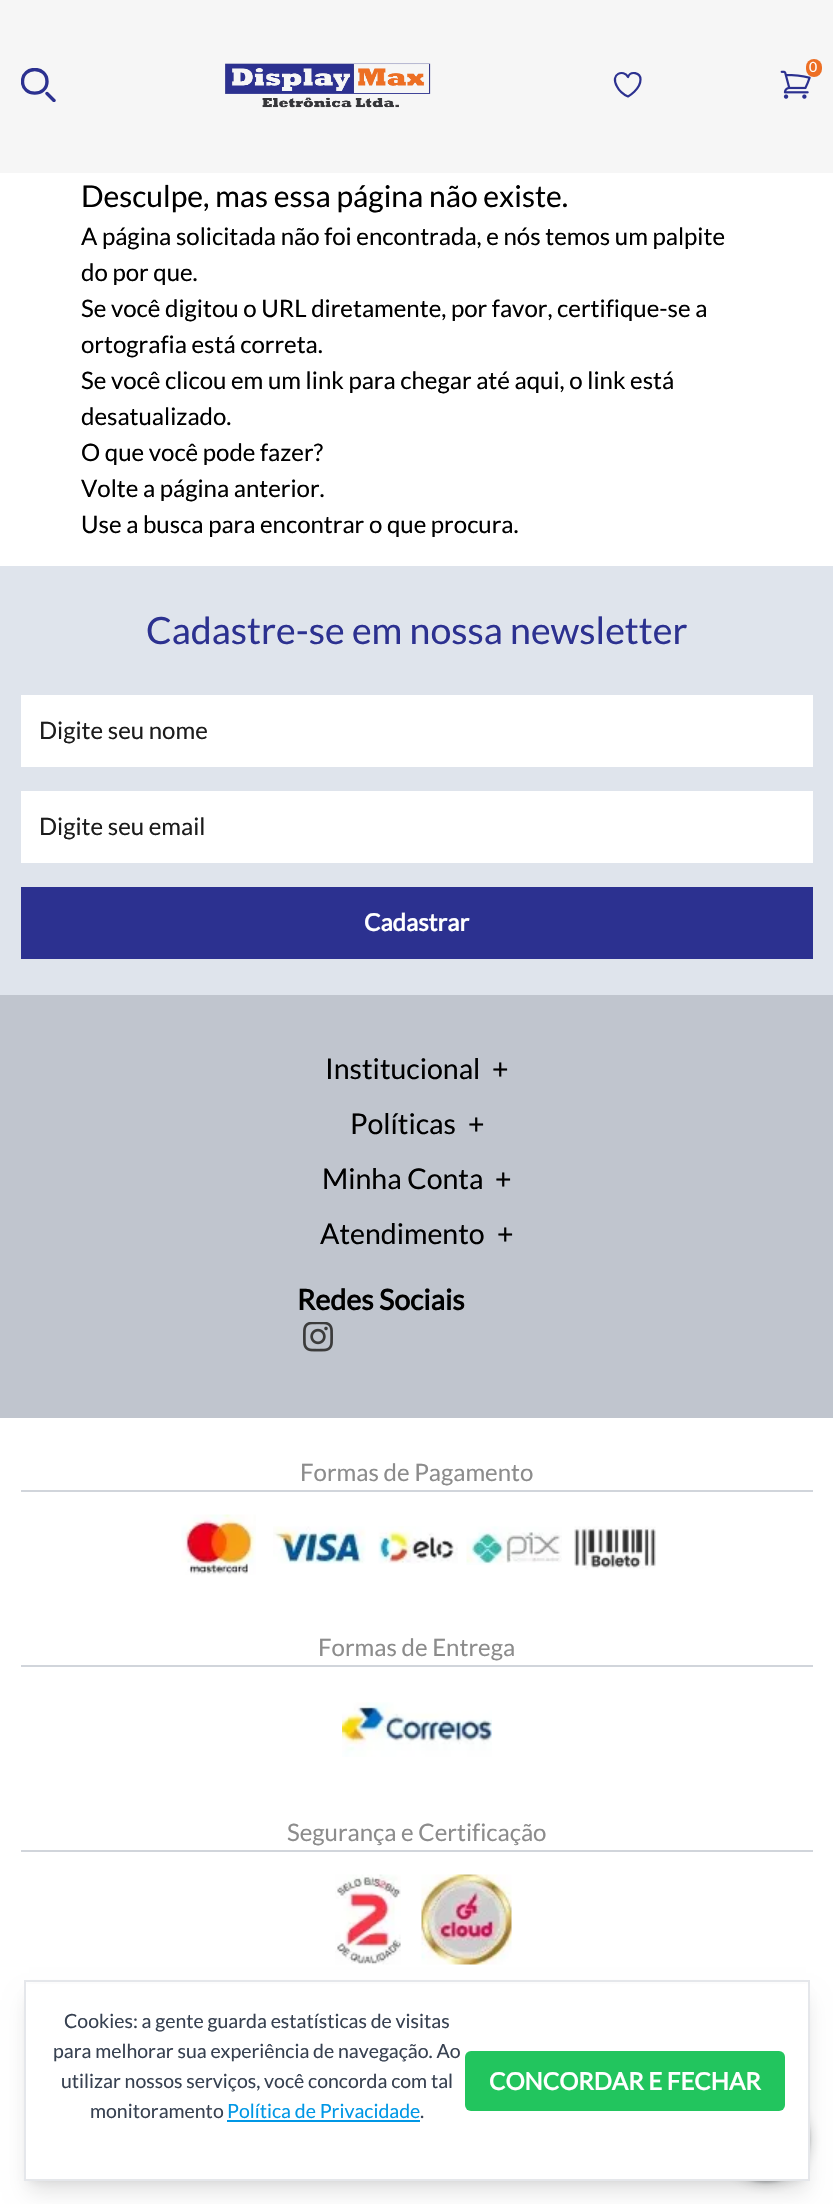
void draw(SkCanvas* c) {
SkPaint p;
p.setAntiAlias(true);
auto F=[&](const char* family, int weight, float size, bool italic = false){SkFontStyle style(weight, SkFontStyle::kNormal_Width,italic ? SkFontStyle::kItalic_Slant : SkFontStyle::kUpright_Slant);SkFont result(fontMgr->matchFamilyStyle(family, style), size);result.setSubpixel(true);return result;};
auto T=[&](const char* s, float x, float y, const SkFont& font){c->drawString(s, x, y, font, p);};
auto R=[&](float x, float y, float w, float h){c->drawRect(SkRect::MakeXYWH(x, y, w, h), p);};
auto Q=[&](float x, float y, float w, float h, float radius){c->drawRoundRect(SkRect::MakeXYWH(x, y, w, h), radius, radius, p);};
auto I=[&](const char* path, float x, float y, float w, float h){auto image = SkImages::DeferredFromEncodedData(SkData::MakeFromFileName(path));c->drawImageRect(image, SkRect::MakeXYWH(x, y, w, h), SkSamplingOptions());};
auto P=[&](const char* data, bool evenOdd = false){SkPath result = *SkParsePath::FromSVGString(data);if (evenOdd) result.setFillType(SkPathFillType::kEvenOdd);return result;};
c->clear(0xffffffff);
p.setColor(0xfff6f6f6);
R(0,0,833,173);
c->save();
c->clipRect(SkRect::MakeXYWH(21,68,35,34));
p.setStroke(true);
p.setStrokeWidth(3.4);
p.setStrokeCap(SkPaint::kRound_Cap);
p.setStrokeJoin(SkPaint::kRound_Join);
p.setColor(0xff2c3190);
c->drawPath(P("M54 100.5l-7-7m0-12c0 15.5-24.5 15.5-24.5 0c0-16 24.5-16 24.5 0z"),p);
c->restore();
I("1.png",225,63,206,45);
p.setStrokeWidth(2.2);
c->drawPath(P("M640.5 79.5c0-7-10-9-12.5-2.5c-4-8-18.5-3.5-11 9.5c2 4 6.5 8 11 10c0 0 12.5-7 12.5-17z"),p);
I("2.png",780,70,31,29);
p.setStroke(false);
p.setColor(0xffed6f24);
Q(806,59,16,18,8);
auto f1 = F("Lato",400,14);
p.setColor(0xffffffff);
T("0",809,72,f1);
auto f2 = F("Lato",400,30);
p.setColor(0xff000000);
T("Desculpe, mas essa página não existe.",81,207,f2);
auto f3 = F("Lato",400,24);
T("A página solicitada não foi encontrada, e nós temos um palpite",81,245,f3);
T("do por que.",81,281,f3);
T("Se você digitou o URL diretamente, por favor, certifique-se a",81,317,f3);
T("ortografia está correta.",81,353,f3);
T("Se você clicou em um link para chegar até aqui, o link está",81,389,f3);
T("desatualizado.",81,425,f3);
T("O que você pode fazer?",81,461,f3);
T("Volte a página anterior.",81,497,f3);
T("Use a busca para encontrar o que procura.",81,533,f3);
p.setColor(0x1a000000);
p.setMaskFilter(SkMaskFilter::MakeBlur(kNormal_SkBlurStyle, 4.5));
c->drawRect(SkRect::MakeXYWH(30,1992,774,189),p);
p.setMaskFilter(nullptr);
p.setMaskFilter(SkMaskFilter::MakeBlur(kNormal_SkBlurStyle, 11));
c->drawRect(SkRect::MakeXYWH(29,2000,777,192),p);
p.setMaskFilter(nullptr);
p.setColor(0x263c4043);
p.setMaskFilter(SkMaskFilter::MakeBlur(kNormal_SkBlurStyle, 4.5));
c->drawRoundRect(SkRect::MakeXYWH(719,2093,94,94),47,47,p);
p.setMaskFilter(nullptr);
p.setColor(0x4d3c4043);
p.setMaskFilter(SkMaskFilter::MakeBlur(kNormal_SkBlurStyle, 1.5));
c->drawRoundRect(SkRect::MakeXYWH(722,2094,88,89),44,44,p);
p.setMaskFilter(nullptr);
p.setColor(0xffffffff);
R(26,1984,782,195);
p.setStroke(true);
p.setStrokeWidth(2);
p.setStrokeCap(SkPaint::kButt_Cap);
p.setStrokeJoin(SkPaint::kMiter_Join);
p.setColor(0xffe5e7eb);
c->drawRect(SkRect::MakeXYWH(25,1981,784,199),p);
auto f4 = F("Lato",400,19.5);
p.setStroke(false);
p.setColor(0xff374151);
T("Cookies: a gente guarda estatísticas de visitas",64,2028,f4);
T("para melhorar sua experiência de navegação. Ao",53,2058,f4);
T("utilizar nossos serviços, você concorda com tal",61,2088,f4);
T("monitoramento",90,2118,f4);
p.setColor(0xff0097e5);
T("Política de Privacidade",227,2118,f4);
R(227,2120,193,2);
p.setColor(0xff374151);
T(".",420,2118,f4);
p.setColor(0xff22c55e);
Q(465,2051,320,60,6);
auto f5 = F("Lato",700,24);
p.setColor(0xffffffff);
T("CONCORDAR E FECHAR",489,2090,f5);
p.setColor(0xffdfe4ec);
R(0,566,833,429);
auto f6 = F("Lato",400,37.5);
p.setColor(0xff2c3190);
T("Cadastre-se em nossa newsletter",146,644,f6);
p.setColor(0xffffffff);
R(21,695,792,72);
p.setColor(0xff1c1c1c);
T("Digite seu nome",39,739,f3);
p.setColor(0xffffffff);
R(21,791,792,72);
p.setColor(0xff1c1c1c);
T("Digite seu email",39,835,f3);
p.setColor(0xff2c3190);
R(21,887,792,72);
p.setColor(0xffffffff);
T("Cadastrar",364,931,f5);
p.setColor(0xffc0c5ce);
R(0,995,833,423);
auto f7 = F("Lato",400,28.5);
p.setColor(0xff000000);
T("Institucional",325,1079,f7);
T("+",492,1079,f7);
T("Políticas",350,1134,f7);
T("+",468,1134,f7);
T("Minha Conta",322,1189,f7);
T("+",495,1189,f7);
T("Atendimento",320,1244,f7);
T("+",497,1244,f7);
auto f8 = F("Lato",700,28.5);
T("Redes Sociais",297,1310,f8);
I("3.png",303,1322,30,30);
p.setColor(0xff8c8c8c);
T("Formas de Pagamento",300,1481,f3);
p.setColor(0xffd1d5db);
R(21,1490,792,2);
I("4.png",181,1514,75,61);
I("5.png",273,1526,93,38);
I("6.png",378,1526,80,38);
I("7.png",466,1526,96,39);
I("8.png",574,1526,82,44);
p.setColor(0xff8c8c8c);
T("Formas de Entrega",318,1656,f3);
p.setColor(0xffd1d5db);
R(21,1665,792,2);
I("9.png",342,1702,150,55);
p.setColor(0xff8c8c8c);
T("Segurança e Certificação",287,1841,f3);
p.setColor(0xffd1d5db);
R(21,1850,792,2);
I("10.png",335,1874,66,91);
I("11.png",421,1874,91,91);
}
